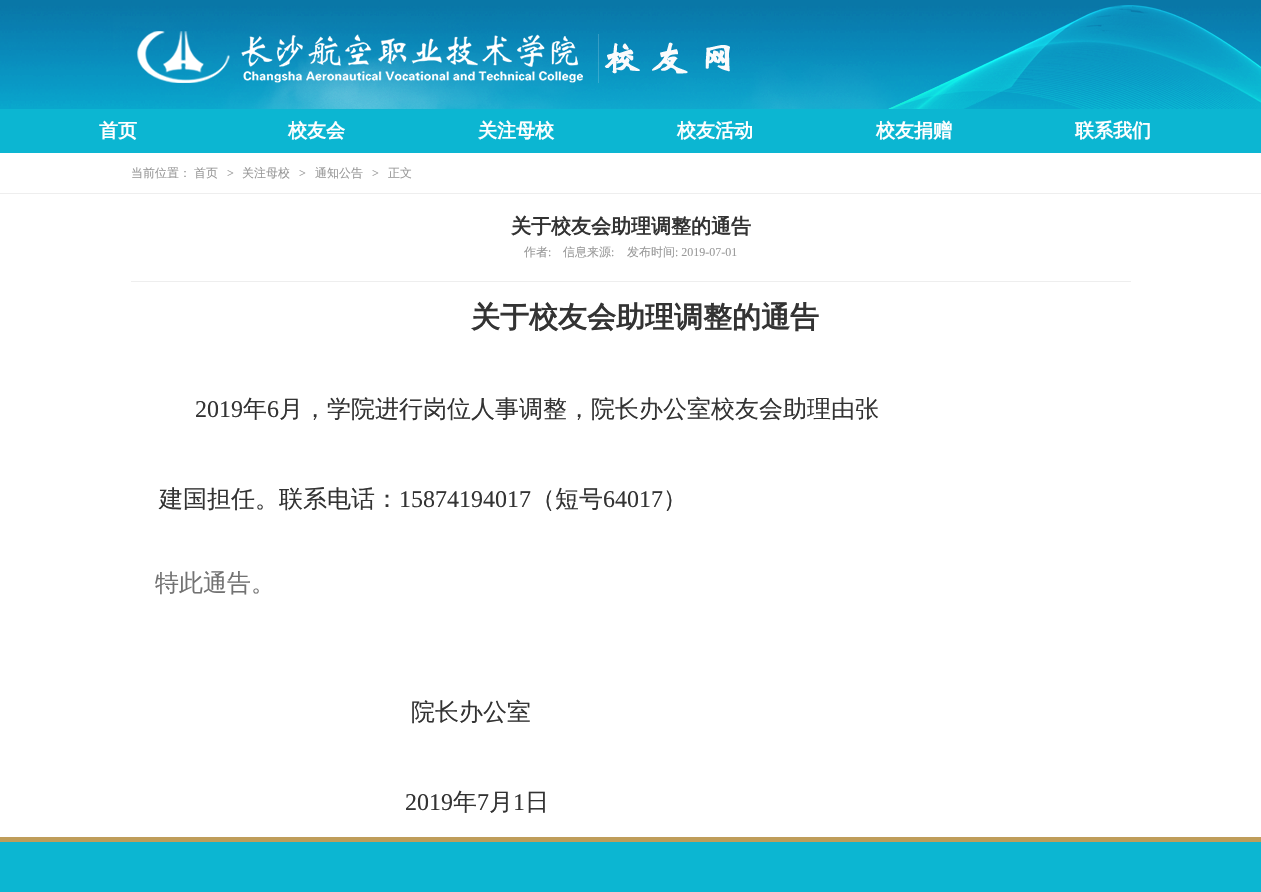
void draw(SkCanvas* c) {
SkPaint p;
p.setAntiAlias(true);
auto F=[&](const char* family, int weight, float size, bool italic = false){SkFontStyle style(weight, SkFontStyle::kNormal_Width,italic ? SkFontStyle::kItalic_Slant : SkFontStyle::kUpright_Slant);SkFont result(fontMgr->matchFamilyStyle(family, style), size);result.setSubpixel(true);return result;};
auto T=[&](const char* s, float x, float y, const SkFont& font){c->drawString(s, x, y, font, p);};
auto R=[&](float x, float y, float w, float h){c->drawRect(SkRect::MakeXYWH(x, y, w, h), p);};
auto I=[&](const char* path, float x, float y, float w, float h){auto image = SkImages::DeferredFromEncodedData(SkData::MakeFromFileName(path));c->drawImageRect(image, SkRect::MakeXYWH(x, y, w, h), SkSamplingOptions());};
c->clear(0xffffffff);
I("1.png",0,0,1261,109);
I("2.png",137,31,593,52);
p.setColor(0xff0cb6d2);
R(0,109,1261,44);
auto f1 = F("WenQuanYi Zen Hei",700,19);
p.setColor(0xffffffff);
T("首页",99,137,f1);
T("校友会",288,137,f1);
T("关注母校",478,137,f1);
T("校友活动",677,137,f1);
T("校友捐赠",876,137,f1);
T("联系我们",1075,137,f1);
p.setColor(0xffeeeeee);
R(0,193,1261,1);
auto f2 = F("WenQuanYi Zen Hei",500,12);
p.setColor(0xff999999);
T("当前位置：",131,177,f2);
T("首页",194,177,f2);
auto f3 = F("Liberation Serif",400,12);
T(">",227,177,f3);
T("关注母校",242,177,f2);
T(">",299,177,f3);
T("通知公告",315,177,f2);
T(">",372,177,f3);
T("正文",388,177,f2);
p.setColor(0xffeeeeee);
R(131,281,1000,1);
auto f4 = F("WenQuanYi Zen Hei",700,20);
p.setColor(0xff333333);
T("关于校友会助理调整的通告",511,233,f4);
p.setColor(0xff999999);
T("作者",524,256,f2);
T(":",548,256,f3);
T("信息来源",563,256,f2);
T(":",611,256,f3);
T("发布时间",627,256,f2);
T(": 2019-07-01",675,256,f3);
auto f5 = F("WenQuanYi Zen Hei",700,29);
p.setColor(0xff333333);
T("关于校友会助理调整的通告",471,327,f5);
auto f6 = F("Liberation Serif",400,24);
T("2019",195,417,f6);
auto f7 = F("WenQuanYi Zen Hei",500,24);
T("年",243,417,f7);
T("6",267,417,f6);
T("月，学院进行岗位人事调整，院长办公室校友会助理由张",279,417,f7);
T("建国担任。联系电话：",159,507,f7);
T("15874194017",399,507,f6);
T("（短号",531,507,f7);
T("64017",603,507,f6);
T("）",663,507,f7);
p.setColor(0xff727272);
T("特此通告。",155,591,f7);
p.setColor(0xff333333);
T("院长办公室",411,720,f7);
T("2019",405,810,f6);
T("年",453,810,f7);
T("7",477,810,f6);
T("月",489,810,f7);
T("1",513,810,f6);
T("日",525,810,f7);
p.setColor(0xff0cb6d2);
R(0,842,1261,50);
p.setColor(0xffbf9d5a);
R(0,837,1261,5);
}
